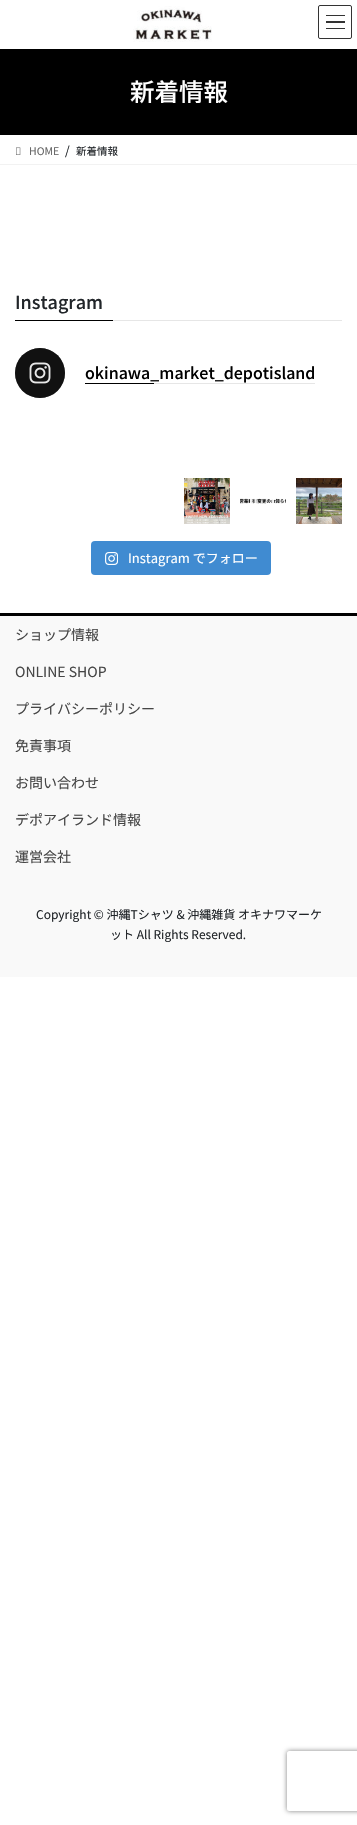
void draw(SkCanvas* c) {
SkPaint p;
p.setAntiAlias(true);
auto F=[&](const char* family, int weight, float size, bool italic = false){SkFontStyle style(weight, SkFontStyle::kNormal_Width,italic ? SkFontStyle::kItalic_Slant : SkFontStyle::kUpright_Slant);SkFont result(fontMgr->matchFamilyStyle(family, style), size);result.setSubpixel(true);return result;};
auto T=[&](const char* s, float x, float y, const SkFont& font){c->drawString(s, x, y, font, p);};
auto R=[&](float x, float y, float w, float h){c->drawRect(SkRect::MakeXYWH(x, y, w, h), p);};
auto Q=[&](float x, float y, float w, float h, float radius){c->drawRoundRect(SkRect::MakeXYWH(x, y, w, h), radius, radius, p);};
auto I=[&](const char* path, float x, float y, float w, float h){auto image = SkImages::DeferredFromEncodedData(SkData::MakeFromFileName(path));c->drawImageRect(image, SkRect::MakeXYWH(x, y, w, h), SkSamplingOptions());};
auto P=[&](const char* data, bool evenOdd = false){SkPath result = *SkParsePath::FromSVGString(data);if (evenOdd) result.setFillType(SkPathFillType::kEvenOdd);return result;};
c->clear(0xffffffff);
I("1.png",133,6,79,36);
p.setColor(0xff333333);
R(326,15,19,1);
R(326,21,19,2);
R(326,28,19,1);
p.setStroke(true);
p.setStrokeWidth(1);
c->drawRoundRect(SkRect::MakeXYWH(318.5,5.5,33,33),1.5,1.5,p);
p.setStroke(false);
p.setColor(0xff000000);
R(0,49,357,86);
auto f1 = F("Noto Sans JP",500,24.5);
p.setColor(0xffffffff);
T("新着情報",130,101,f1);
p.setColor(0xfff2f2f2);
R(0,164,357,1);
I("2.png",16,147,5,8);
auto f2 = F("Noto Sans JP",400,10.5);
p.setColor(0xff666666);
T("HOME",29,155,f2);
auto f3 = F("Noto Sans JP",400,12);
p.setColor(0xff212529);
T("/",65,155,f3);
T("新着情報",76,155,f2);
p.setColor(0xffe6e6e6);
R(113,320,229,1);
auto f4 = F("Noto Sans JP",500,18);
p.setColor(0xff212529);
T("Instagram",15,309,f4);
p.setColor(0xff000000);
R(15,320,98,1);
p.setColor(0xff333333);
c->drawCircle(40,373,25,p);
p.setColor(0xad000000);
c->drawCircle(40,373,25,p);
I("3.png",29,362,22,22);
p.setColor(0xffe6e6e6);
R(154,383,161,1);
auto f5 = F("Noto Sans JP",500,16);
p.setColor(0xff000000);
T("okinawa_market_depotisland",85,379,f5);
R(85,383,69,1);
I("4.png",184,478,46,46);
I("5.png",240,498,46,6);
I("6.png",250,498,24,6);
I("7.png",296,478,46,46);
p.setColor(0xff408bd1);
Q(91,541,180,34,4);
I("8.png",105,552,13,13);
auto f6 = F("Noto Sans JP",400,13);
p.setColor(0xffffffff);
T("Instagram でフォロー",128,563,f6);
p.setColor(0xfff9f9f9);
R(0,616,357,361);
p.setColor(0xff000000);
R(0,613,357,3);
auto f7 = F("Noto Sans JP",400,14);
p.setColor(0xff464646);
T("ショップ情報",15,640,f7);
T("ONLINE SHOP",15,677,f7);
T("プライバシーポリシー",15,714,f7);
T("免責事項",15,751,f7);
T("お問い合わせ",15,788,f7);
T("デポアイランド情報",15,825,f7);
T("運営会社",15,862,f7);
p.setColor(0xff212529);
T("Copyright © 沖縄Tシャツ & 沖縄雑貨 オキナワマーケ",36,919,f3);
T("ット All Rights Reserved.",110,939,f3);
c->save();
c->clipPath(P("M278 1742h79v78h-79zm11 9h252c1 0 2 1 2 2v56c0 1-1 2-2 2h-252c-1 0-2-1-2-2v-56c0-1 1-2 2-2z",true),true);
p.setColor(0xff808080);
p.setMaskFilter(SkMaskFilter::MakeBlur(kNormal_SkBlurStyle, 2.5));
c->drawRoundRect(SkRect::MakeXYWH(287,1751,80,60),2,2,p);
p.setMaskFilter(nullptr);
c->restore();
}
